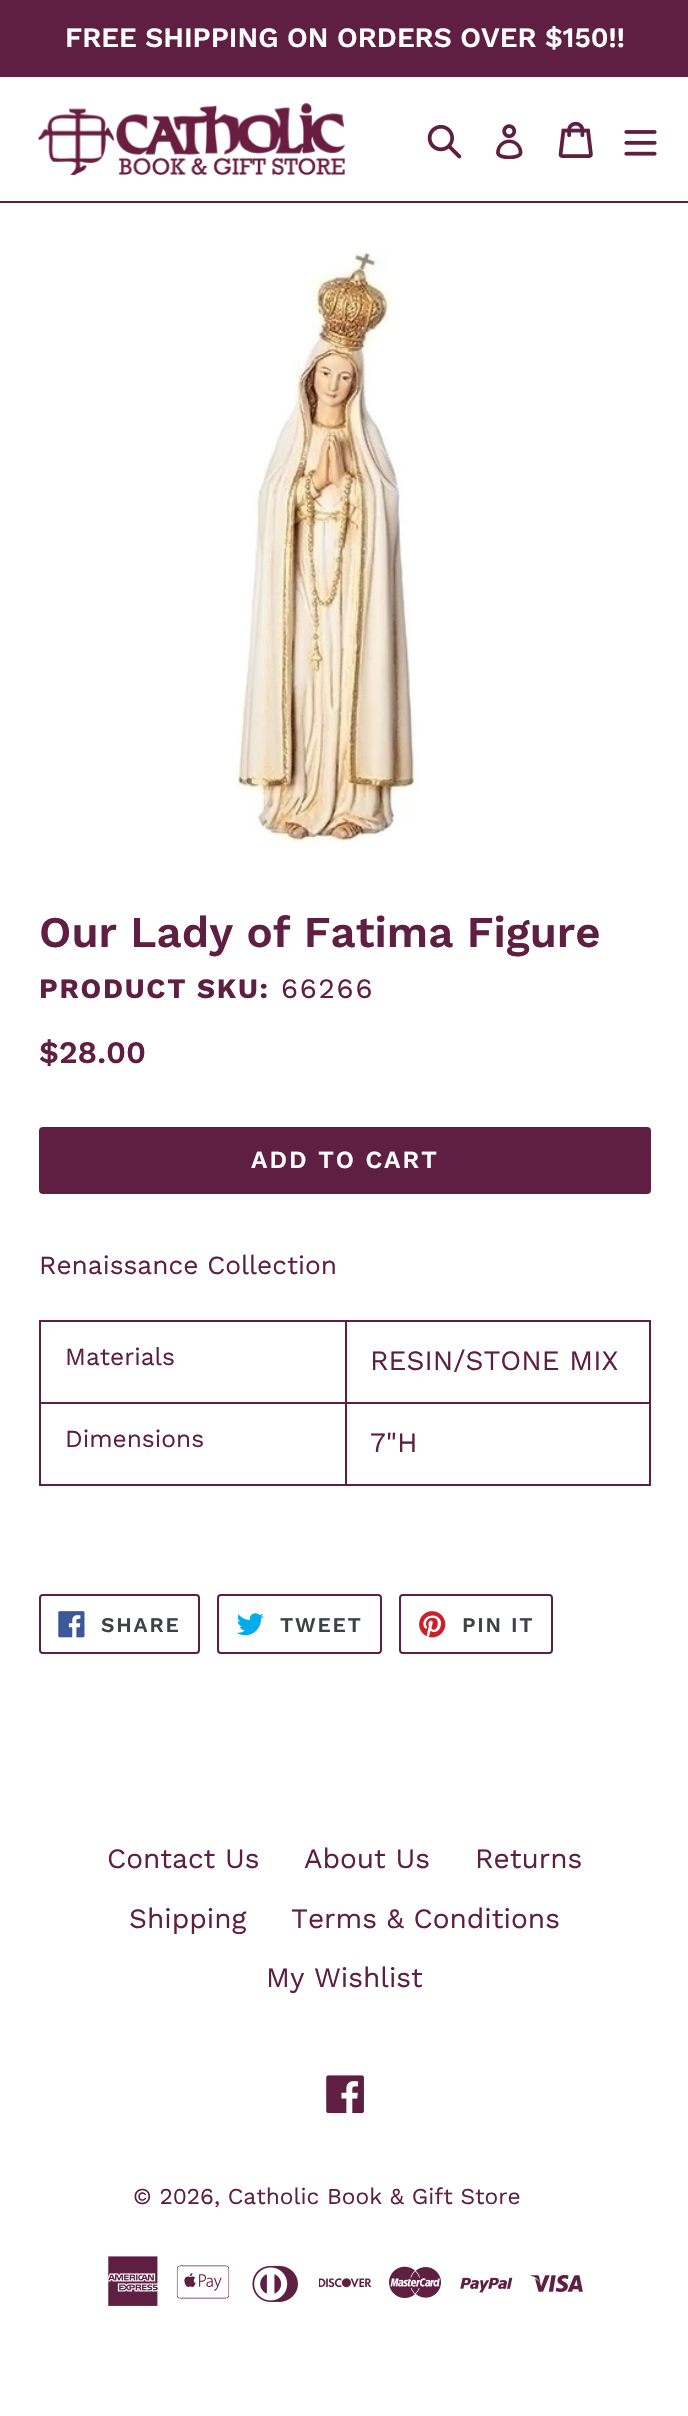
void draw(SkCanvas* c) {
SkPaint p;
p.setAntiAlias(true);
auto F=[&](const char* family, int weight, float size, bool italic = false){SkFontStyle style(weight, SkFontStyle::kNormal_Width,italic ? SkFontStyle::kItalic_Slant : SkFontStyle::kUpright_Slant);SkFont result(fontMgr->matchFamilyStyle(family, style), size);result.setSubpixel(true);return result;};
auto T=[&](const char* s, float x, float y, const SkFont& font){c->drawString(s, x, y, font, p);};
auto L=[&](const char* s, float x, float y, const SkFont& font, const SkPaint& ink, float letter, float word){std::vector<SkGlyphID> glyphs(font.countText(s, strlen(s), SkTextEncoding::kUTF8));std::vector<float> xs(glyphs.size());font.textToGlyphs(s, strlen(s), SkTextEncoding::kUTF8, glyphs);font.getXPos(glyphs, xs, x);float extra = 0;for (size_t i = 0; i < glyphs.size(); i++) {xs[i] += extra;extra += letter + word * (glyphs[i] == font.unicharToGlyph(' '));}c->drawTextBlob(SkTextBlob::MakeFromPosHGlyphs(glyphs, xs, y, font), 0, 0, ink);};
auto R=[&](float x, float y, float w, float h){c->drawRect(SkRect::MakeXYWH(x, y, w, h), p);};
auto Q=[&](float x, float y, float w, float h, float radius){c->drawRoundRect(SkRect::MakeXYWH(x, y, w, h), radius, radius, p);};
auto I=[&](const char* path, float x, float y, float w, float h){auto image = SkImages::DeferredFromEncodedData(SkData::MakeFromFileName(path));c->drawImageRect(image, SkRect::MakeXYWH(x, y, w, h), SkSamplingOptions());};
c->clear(0xffffffff);
p.setColor(0xff5f1f42);
R(0,0,688,77);
auto f1 = F("Work Sans",600,28);
p.setColor(0xffffffff);
T("FREE SHIPPING ON ORDERS OVER $150!!",65,47,f1);
p.setColor(0xff5f1f42);
R(0,201,688,2);
I("1.png",38,103,307,72);
I("2.png",427,124,35,35);
I("3.png",496,124,27,35);
I("4.png",558,121,35,37);
I("5.png",624,130,33,26);
I("6.png",235,251,183,596);
auto f2 = F("Work Sans",600,43.75);
T("Our Lady of Fatima Figure",39,947,f2);
auto f3 = F("Work Sans",700,28);
L("PRODUCT SKU:",39,998,f3,p,1.75,0);
auto f4 = F("Work Sans",400,28);
L("66266",281,998,f4,p,1.75,0);
auto f5 = F("Work Sans",600,31.5);
T("$28.00",39,1063,f5);
Q(39,1127,612,67,4);
auto f6 = F("Work Sans",600,24.5);
p.setColor(0xffffffff);
L("ADD TO CART",251,1168,f6,p,2,0);
auto f7 = F("Work Sans",400,26.25);
p.setColor(0xff5f1f42);
T("Renaissance Collection",39,1274,f7);
R(345,1320,306,2);
R(345,1402,306,2);
R(649,1402,2,84);
R(345,1484,306,2);
R(345,1402,2,84);
R(39,1402,308,2);
R(345,1320,2,84);
R(39,1320,308,2);
R(39,1484,308,2);
R(39,1402,2,84);
R(39,1320,2,84);
auto f8 = F("Work Sans",400,24.5);
T("Materials",65,1365,f8);
R(649,1320,2,84);
T("RESIN/STONE MIX",370,1370,f4);
T("Dimensions",65,1447,f8);
T("7\"H",370,1452,f4);
p.setStroke(true);
p.setStrokeWidth(2);
c->drawRoundRect(SkRect::MakeXYWH(40,1595,159,58),3,3,p);
I("7.png",58,1611,27,27);
auto f9 = F("Work Sans",600,21);
p.setStroke(false);
p.setColor(0xff3d4246);
L("SHARE",101,1632,f9,p,1.75,0);
p.setStroke(true);
p.setColor(0xff5f1f42);
c->drawRoundRect(SkRect::MakeXYWH(218,1595,163,58),3,3,p);
I("8.png",236,1613,28,23);
p.setStroke(false);
p.setColor(0xff3d4246);
L("TWEET",280,1632,f9,p,1.75,0);
p.setStroke(true);
p.setColor(0xff5f1f42);
c->drawRoundRect(SkRect::MakeXYWH(400,1595,152,58),3,3,p);
I("9.png",419,1611,27,27);
p.setStroke(false);
p.setColor(0xff3d4246);
L("PIN IT",462,1632,f9,p,1.75,0);
p.setColor(0xff5f1f42);
T("Contact Us",107,1868,f4);
T("About Us",304,1868,f4);
T("Returns",475,1868,f4);
T("Shipping",129,1928,f4);
T("Terms & Conditions",291,1928,f4);
T("My Wishlist",266,1987,f4);
I("10.png",326,2075,38,39);
auto f10 = F("Work Sans",400,22.75);
T("© 2026, Catholic Book & Gift Store",133,2204,f10);
I("11.png",108,2256,50,50);
I("12.png",176,2265,54,34);
I("13.png",252,2265,46,37);
I("14.png",319,2278,52,10);
I("15.png",389,2266,52,32);
I("16.png",460,2277,53,16);
I("17.png",530,2274,53,18);
}
